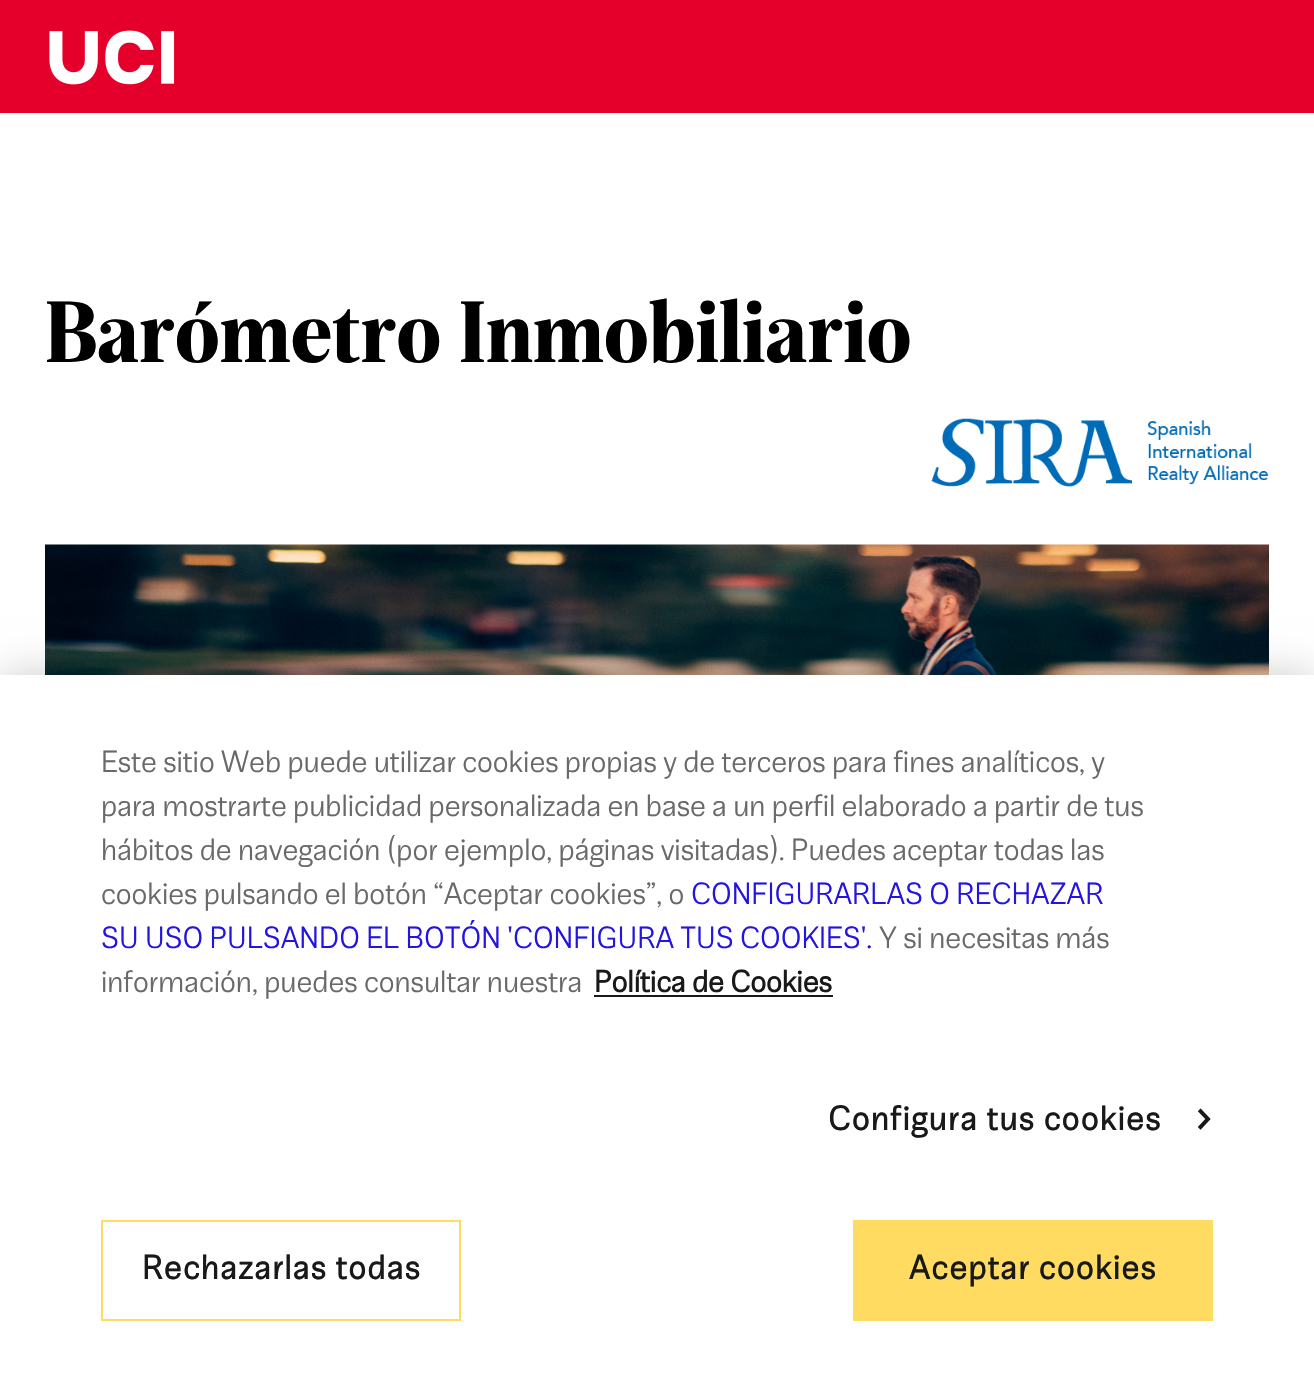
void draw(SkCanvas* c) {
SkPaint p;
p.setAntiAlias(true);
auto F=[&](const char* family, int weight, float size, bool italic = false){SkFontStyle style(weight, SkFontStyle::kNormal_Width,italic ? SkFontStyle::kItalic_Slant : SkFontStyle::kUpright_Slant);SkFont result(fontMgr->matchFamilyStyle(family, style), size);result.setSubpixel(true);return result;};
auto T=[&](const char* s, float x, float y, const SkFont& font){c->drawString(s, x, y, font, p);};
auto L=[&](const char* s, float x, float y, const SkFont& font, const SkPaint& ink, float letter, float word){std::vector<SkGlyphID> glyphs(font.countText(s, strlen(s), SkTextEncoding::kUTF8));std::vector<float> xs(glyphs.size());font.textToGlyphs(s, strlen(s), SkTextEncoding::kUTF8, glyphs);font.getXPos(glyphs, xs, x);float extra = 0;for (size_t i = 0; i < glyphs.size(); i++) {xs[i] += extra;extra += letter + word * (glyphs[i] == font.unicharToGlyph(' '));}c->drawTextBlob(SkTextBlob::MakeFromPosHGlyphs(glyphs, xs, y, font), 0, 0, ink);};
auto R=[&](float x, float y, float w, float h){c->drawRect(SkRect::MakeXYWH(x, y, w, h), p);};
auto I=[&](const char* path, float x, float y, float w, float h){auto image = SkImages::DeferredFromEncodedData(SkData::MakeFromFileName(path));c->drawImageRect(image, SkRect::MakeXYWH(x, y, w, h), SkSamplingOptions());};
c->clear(0xffffffff);
p.setColor(0xffe4002b);
R(0,0,1314,113);
I("1.png",49,30,126,55);
auto f1 = F("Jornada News",900,82.75);
p.setColor(0xff000000);
T("Barómetro Inmobiliario",45,362,f1);
I("2.png",931,418,338,69);
I("3.png",45,544,1224,131);
p.setColor(0x33000000);
p.setMaskFilter(SkMaskFilter::MakeBlur(kNormal_SkBlurStyle, 20));
c->drawRect(SkRect::MakeXYWH(0,675,1314,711),p);
p.setMaskFilter(nullptr);
p.setColor(0xffffffff);
R(0,675,1314,710);
auto f2 = F("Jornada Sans",300,29.25);
p.setColor(0xff696969);
T("Este sitio Web puede utilizar cookies propias y de terceros para fines analíticos, y",101,772,f2);
T("para mostrarte publicidad personalizada en base a un perfil elaborado a partir de tus",101,816,f2);
T("hábitos de navegación (por ejemplo, páginas visitadas). Puedes aceptar todas las",101,860,f2);
T("cookies pulsando el botón “Aceptar cookies”, o",101,904,f2);
p.setColor(0xff2314e1);
T("CONFIGURARLAS O RECHAZAR",691,904,f2);
T("SU USO PULSANDO EL BOTÓN 'CONFIGURA TUS COOKIES'.",101,948,f2);
p.setColor(0xff696969);
T("Y si necesitas más",879,948,f2);
T("información, puedes consultar nuestra",101,992,f2);
auto f3 = F("Jornada Sans",700,29.25);
p.setColor(0xff191919);
T("Política de Cookies",594,992,f3);
R(594,995,239,2);
auto f4 = F("Jornada Sans",700,32.4);
L("Configura tus cookies",828,1130,f4,p,1.6,0);
auto f5 = F("Jornada Sans",700,45);
L(">",1196,1135,f5,p,1.6,0);
p.setStroke(true);
p.setStrokeWidth(2);
p.setColor(0xffffdb62);
c->drawRect(SkRect::MakeXYWH(102,1221,358,99),p);
p.setStroke(false);
p.setColor(0xff191919);
L("Rechazarlas todas",142,1279,f4,p,1.6,0);
p.setColor(0xffffdb62);
R(853,1220,360,101);
p.setColor(0xff191919);
L("Aceptar cookies",909,1279,f4,p,1.6,0);
}
